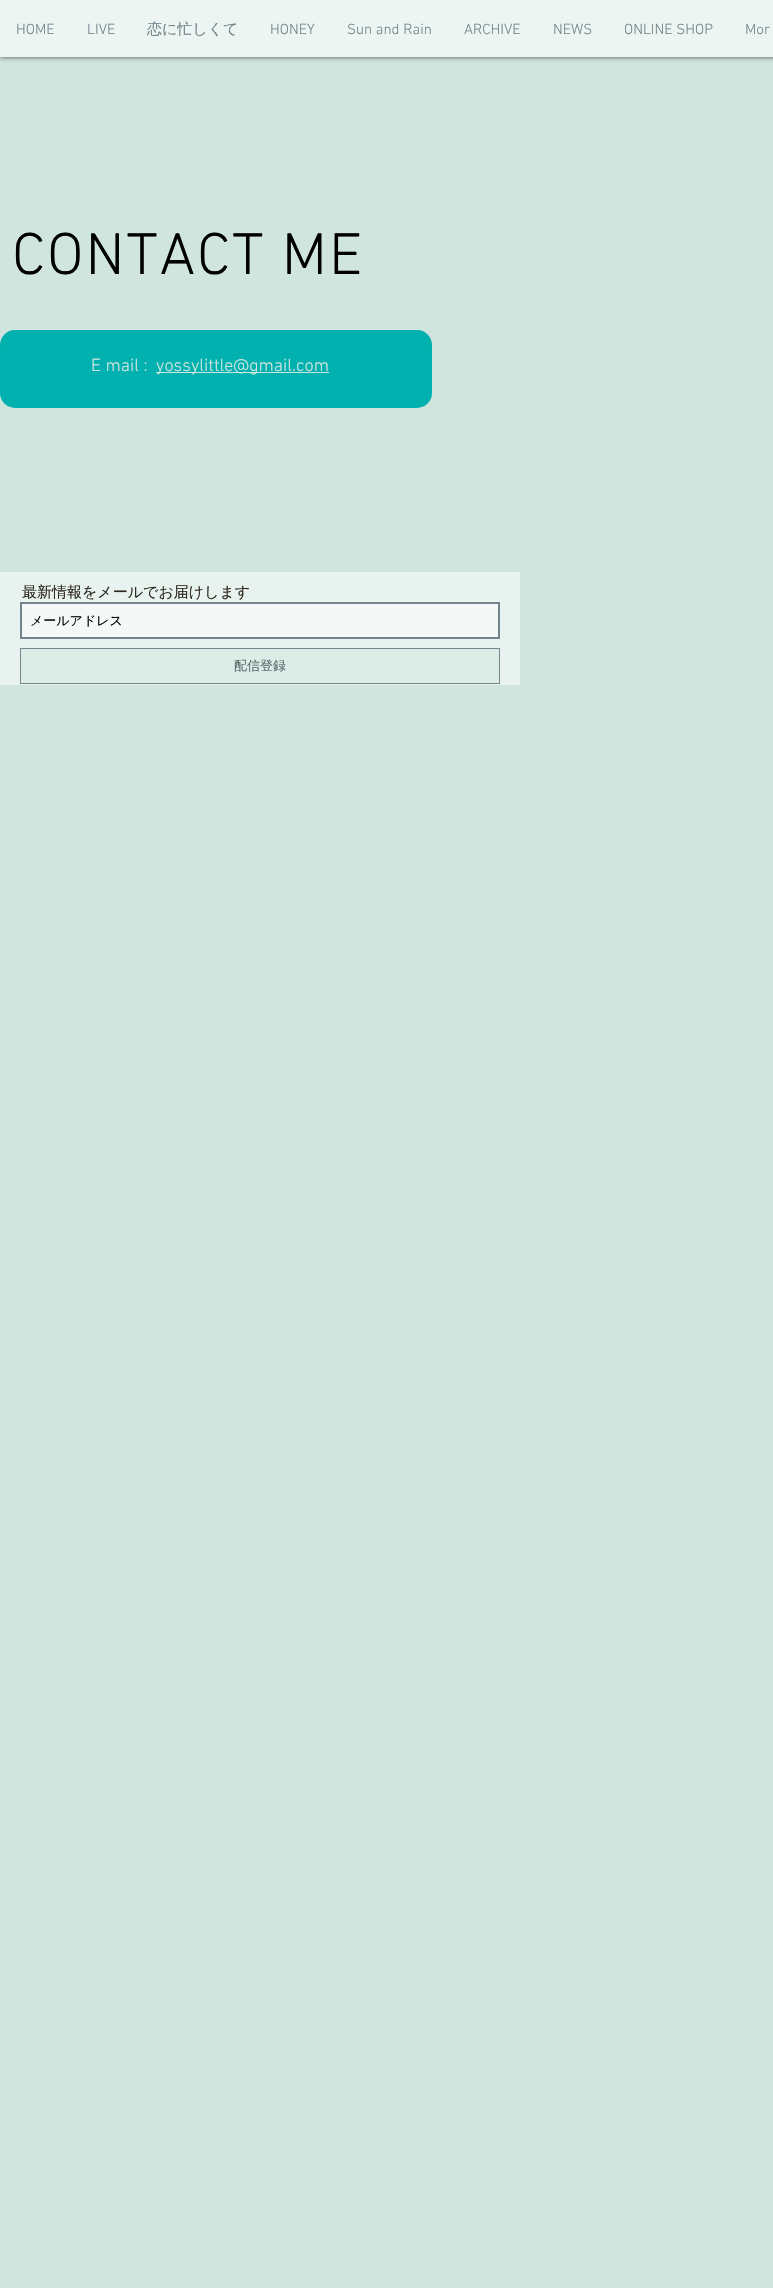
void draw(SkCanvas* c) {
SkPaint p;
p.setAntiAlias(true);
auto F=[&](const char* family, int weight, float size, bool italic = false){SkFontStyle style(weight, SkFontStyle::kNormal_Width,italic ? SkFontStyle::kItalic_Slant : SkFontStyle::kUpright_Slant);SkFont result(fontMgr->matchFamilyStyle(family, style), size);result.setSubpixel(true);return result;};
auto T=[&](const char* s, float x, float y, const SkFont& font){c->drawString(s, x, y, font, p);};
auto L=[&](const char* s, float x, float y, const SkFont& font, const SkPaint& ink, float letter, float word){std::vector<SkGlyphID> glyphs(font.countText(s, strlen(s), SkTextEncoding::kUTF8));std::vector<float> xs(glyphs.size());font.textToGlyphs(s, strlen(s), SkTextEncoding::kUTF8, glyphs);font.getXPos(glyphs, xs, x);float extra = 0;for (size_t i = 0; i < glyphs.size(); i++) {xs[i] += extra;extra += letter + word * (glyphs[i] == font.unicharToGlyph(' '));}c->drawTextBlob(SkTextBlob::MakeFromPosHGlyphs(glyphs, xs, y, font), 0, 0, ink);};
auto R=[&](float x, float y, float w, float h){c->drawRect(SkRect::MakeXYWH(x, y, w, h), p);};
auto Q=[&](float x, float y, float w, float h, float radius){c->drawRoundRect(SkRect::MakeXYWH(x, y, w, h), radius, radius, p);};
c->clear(0xffd0e5de);
p.setColor(0xb3000000);
p.setMaskFilter(SkMaskFilter::MakeBlur(kNormal_SkBlurStyle, 2.5));
c->drawRect(SkRect::MakeXYWH(0,0,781,57),p);
p.setMaskFilter(nullptr);
p.setColor(0xffecf5f2);
R(0,0,773,57);
auto f1 = F("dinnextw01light",300,15);
p.setColor(0xff72858c);
T("HOME",16,34,f1);
T("LIVE",87,34,f1);
auto f2 = F("WenQuanYi Zen Hei",500,15);
T("恋に忙しくて",147,34,f2);
T("HONEY",270,34,f1);
T("Sun and Rain",347,34,f1);
T("ARCHIVE",464,34,f1);
T("NEWS",553,34,f1);
T("ONLINE SHOP",624,34,f1);
T("Mor",745,34,f1);
auto f3 = F("dinnextw01light",300,60);
p.setColor(0xff000000);
L("CONTACT ME",12,274,f3,p,1.75,0);
p.setColor(0xff01b1af);
Q(0,330,432,78,15);
auto f4 = F("dinnextw01light",300,18);
p.setColor(0xffd0e5de);
T("E mail :",91,371,f4);
R(156,372,173,1);
T("yossylittle@gmail.com",156,371,f4);
p.setColor(0xffe8f2ef);
R(0,572,520,113);
p.setColor(0xff2d271d);
T("最新情報をメールでお届けします",22,597,f2);
p.setColor(0xfff4f9f7);
c->drawRect(SkRect::MakeXYWH(21,603,478,35),p);
p.setStroke(true);
p.setStrokeWidth(2);
p.setColor(0xff72858c);
c->drawRect(SkRect::MakeXYWH(21,603,478,35),p);
auto f5 = F("WenQuanYi Zen Hei",500,13);
p.setStroke(false);
p.setColor(0xff000000);
T("メールアドレス",30,625,f5);
p.setColor(0xffdcece7);
c->drawRect(SkRect::MakeXYWH(20.5,648.5,479,35),p);
p.setStroke(true);
p.setStrokeWidth(1);
p.setColor(0xff72858c);
c->drawRect(SkRect::MakeXYWH(20.5,648.5,479,35),p);
p.setStroke(false);
p.setColor(0xff5c686c);
T("配信登録",234,670,f5);
}
